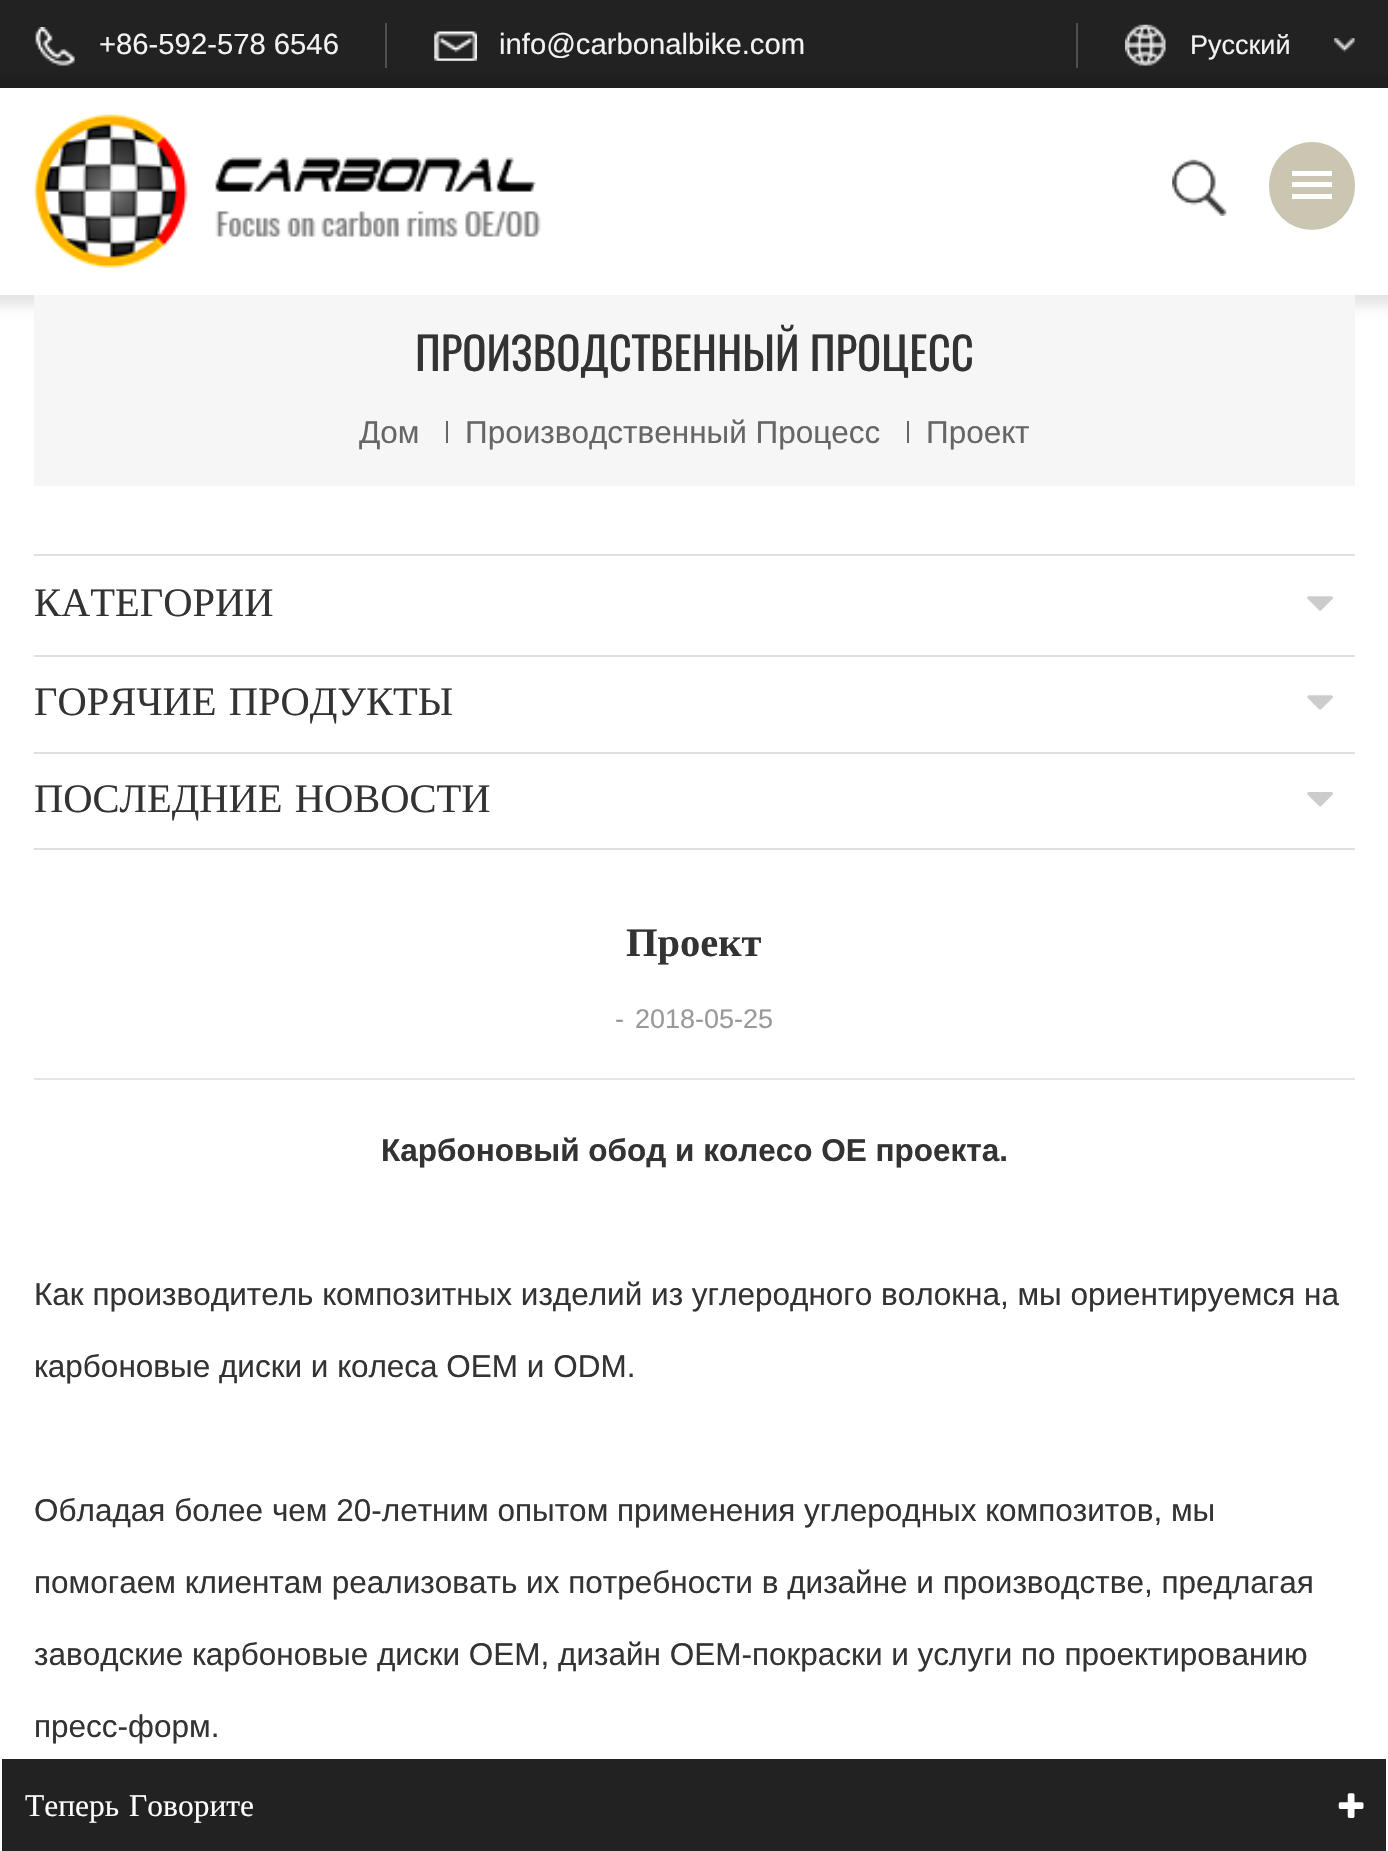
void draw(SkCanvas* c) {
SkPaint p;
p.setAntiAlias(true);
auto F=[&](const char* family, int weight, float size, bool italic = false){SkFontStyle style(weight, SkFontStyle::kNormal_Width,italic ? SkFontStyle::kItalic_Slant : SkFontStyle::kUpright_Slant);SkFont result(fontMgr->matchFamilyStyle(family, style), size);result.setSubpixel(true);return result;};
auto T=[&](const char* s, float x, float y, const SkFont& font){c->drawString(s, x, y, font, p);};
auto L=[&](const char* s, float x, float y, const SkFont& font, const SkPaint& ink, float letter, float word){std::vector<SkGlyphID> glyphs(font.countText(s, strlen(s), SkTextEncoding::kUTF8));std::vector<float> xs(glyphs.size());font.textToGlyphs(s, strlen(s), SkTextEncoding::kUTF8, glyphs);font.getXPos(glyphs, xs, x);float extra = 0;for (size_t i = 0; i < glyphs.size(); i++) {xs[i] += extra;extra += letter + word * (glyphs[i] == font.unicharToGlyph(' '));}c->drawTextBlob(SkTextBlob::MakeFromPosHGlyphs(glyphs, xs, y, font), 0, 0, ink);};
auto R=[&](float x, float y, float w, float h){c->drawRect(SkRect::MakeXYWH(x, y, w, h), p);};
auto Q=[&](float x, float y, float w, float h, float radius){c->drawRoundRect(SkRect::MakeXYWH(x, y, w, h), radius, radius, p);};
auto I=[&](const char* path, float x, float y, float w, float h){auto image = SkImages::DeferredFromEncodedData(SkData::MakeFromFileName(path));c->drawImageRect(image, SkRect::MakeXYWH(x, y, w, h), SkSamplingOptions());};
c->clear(0xffffffff);
p.setColor(0xff222222);
R(0,0,1388,88);
p.setColor(0x1a000000);
p.setMaskFilter(SkMaskFilter::MakeBlur(kNormal_SkBlurStyle, 5.5));
c->drawRect(SkRect::MakeXYWH(-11,77,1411,229),p);
p.setMaskFilter(nullptr);
I("1.png",35,27,40,39);
auto f1 = F("Liberation Sans",400,29.25);
p.setColor(0xfff3f3f3);
T("+86-592-578 6546",99,54,f1);
p.setColor(0xff505050);
R(385,23,2,45);
I("2.png",434,31,43,30);
p.setColor(0xfff3f3f3);
T("info@carbonalbike.com",499,54,f1);
p.setColor(0xff505050);
R(1076,23,2,45);
I("3.png",1125,24,230,42);
auto f2 = F("Liberation Sans",400,27);
p.setColor(0xfff3f3f3);
T("Русский",1190,54,f2);
p.setColor(0xffffffff);
R(0,88,1388,207);
I("4.png",33,114,508,154);
I("5.png",1172,159,55,57);
p.setColor(0xffcbc6b2);
Q(1269,142,86,88,43);
p.setColor(0xffffffff);
R(1292,171,40,5);
R(1292,182,40,5);
R(1292,194,40,5);
p.setColor(0xfff6f6f6);
R(34,295,1321,191);
auto f3 = F("Oswald",400,45);
p.setColor(0xff333333);
T("ПРОИЗВОДСТВЕННЫЙ ПРОЦЕСС",415,371,f3);
auto f4 = F("Liberation Sans",400,31.5);
p.setColor(0xff666666);
T("Дом",359,443,f4);
R(446,421,2,22);
T("Производственный Процесс",465,443,f4);
R(907,421,2,22);
T("Проект",926,443,f4);
p.setColor(0xffe0e0e0);
R(34,848,1321,2);
R(34,554,1321,2);
auto f5 = F("Liberation Serif",400,40.5);
p.setColor(0xff333333);
T("КАТЕГОРИИ",34,616,f5);
I("6.png",1307,596,26,15);
p.setColor(0xffe0e0e0);
R(34,655,1321,2);
p.setColor(0xff333333);
L("ГОРЯЧИЕ ПРОДУКТЫ",34,715,f5,p,0,2);
I("6.png",1307,695,26,15);
p.setColor(0xffe0e0e0);
R(34,752,1321,2);
p.setColor(0xff333333);
L("ПОСЛЕДНИЕ НОВОСТИ",34,812,f5,p,0,2);
I("7.png",1307,792,26,15);
p.setColor(0xffe5e5e5);
R(34,1078,1321,2);
auto f6 = F("Liberation Serif",700,40.5);
p.setColor(0xff333333);
T("Проект",626,956,f6);
p.setColor(0xff999999);
T("-",615,1028,f2);
T("2018-05-25",635,1028,f2);
auto f7 = F("Liberation Sans",700,31.5);
p.setColor(0xff333333);
T("Карбоновый обод и колесо OE проекта.",381,1161,f7);
T("Как производитель композитных изделий из углеродного волокна, мы ориентируемся на",34,1305,f4);
T("карбоновые диски и колеса OEM и ODM.",34,1377,f4);
T("Обладая более чем 20-летним опытом применения углеродных композитов, мы",34,1521,f4);
T("помогаем клиентам реализовать их потребности в дизайне и производстве, предлагая",34,1593,f4);
T("заводские карбоновые диски OEM, дизайн OEM-покраски и услуги по проектированию",34,1665,f4);
T("пресс-форм.",34,1737,f4);
p.setColor(0xff222222);
R(2,1759,1384,92);
auto f8 = F("Liberation Serif",400,31.5);
p.setColor(0xffffffff);
L("Теперь Говорите",25,1816,f8,p,0,2);
I("8.png",1338,1793,26,25);
}
